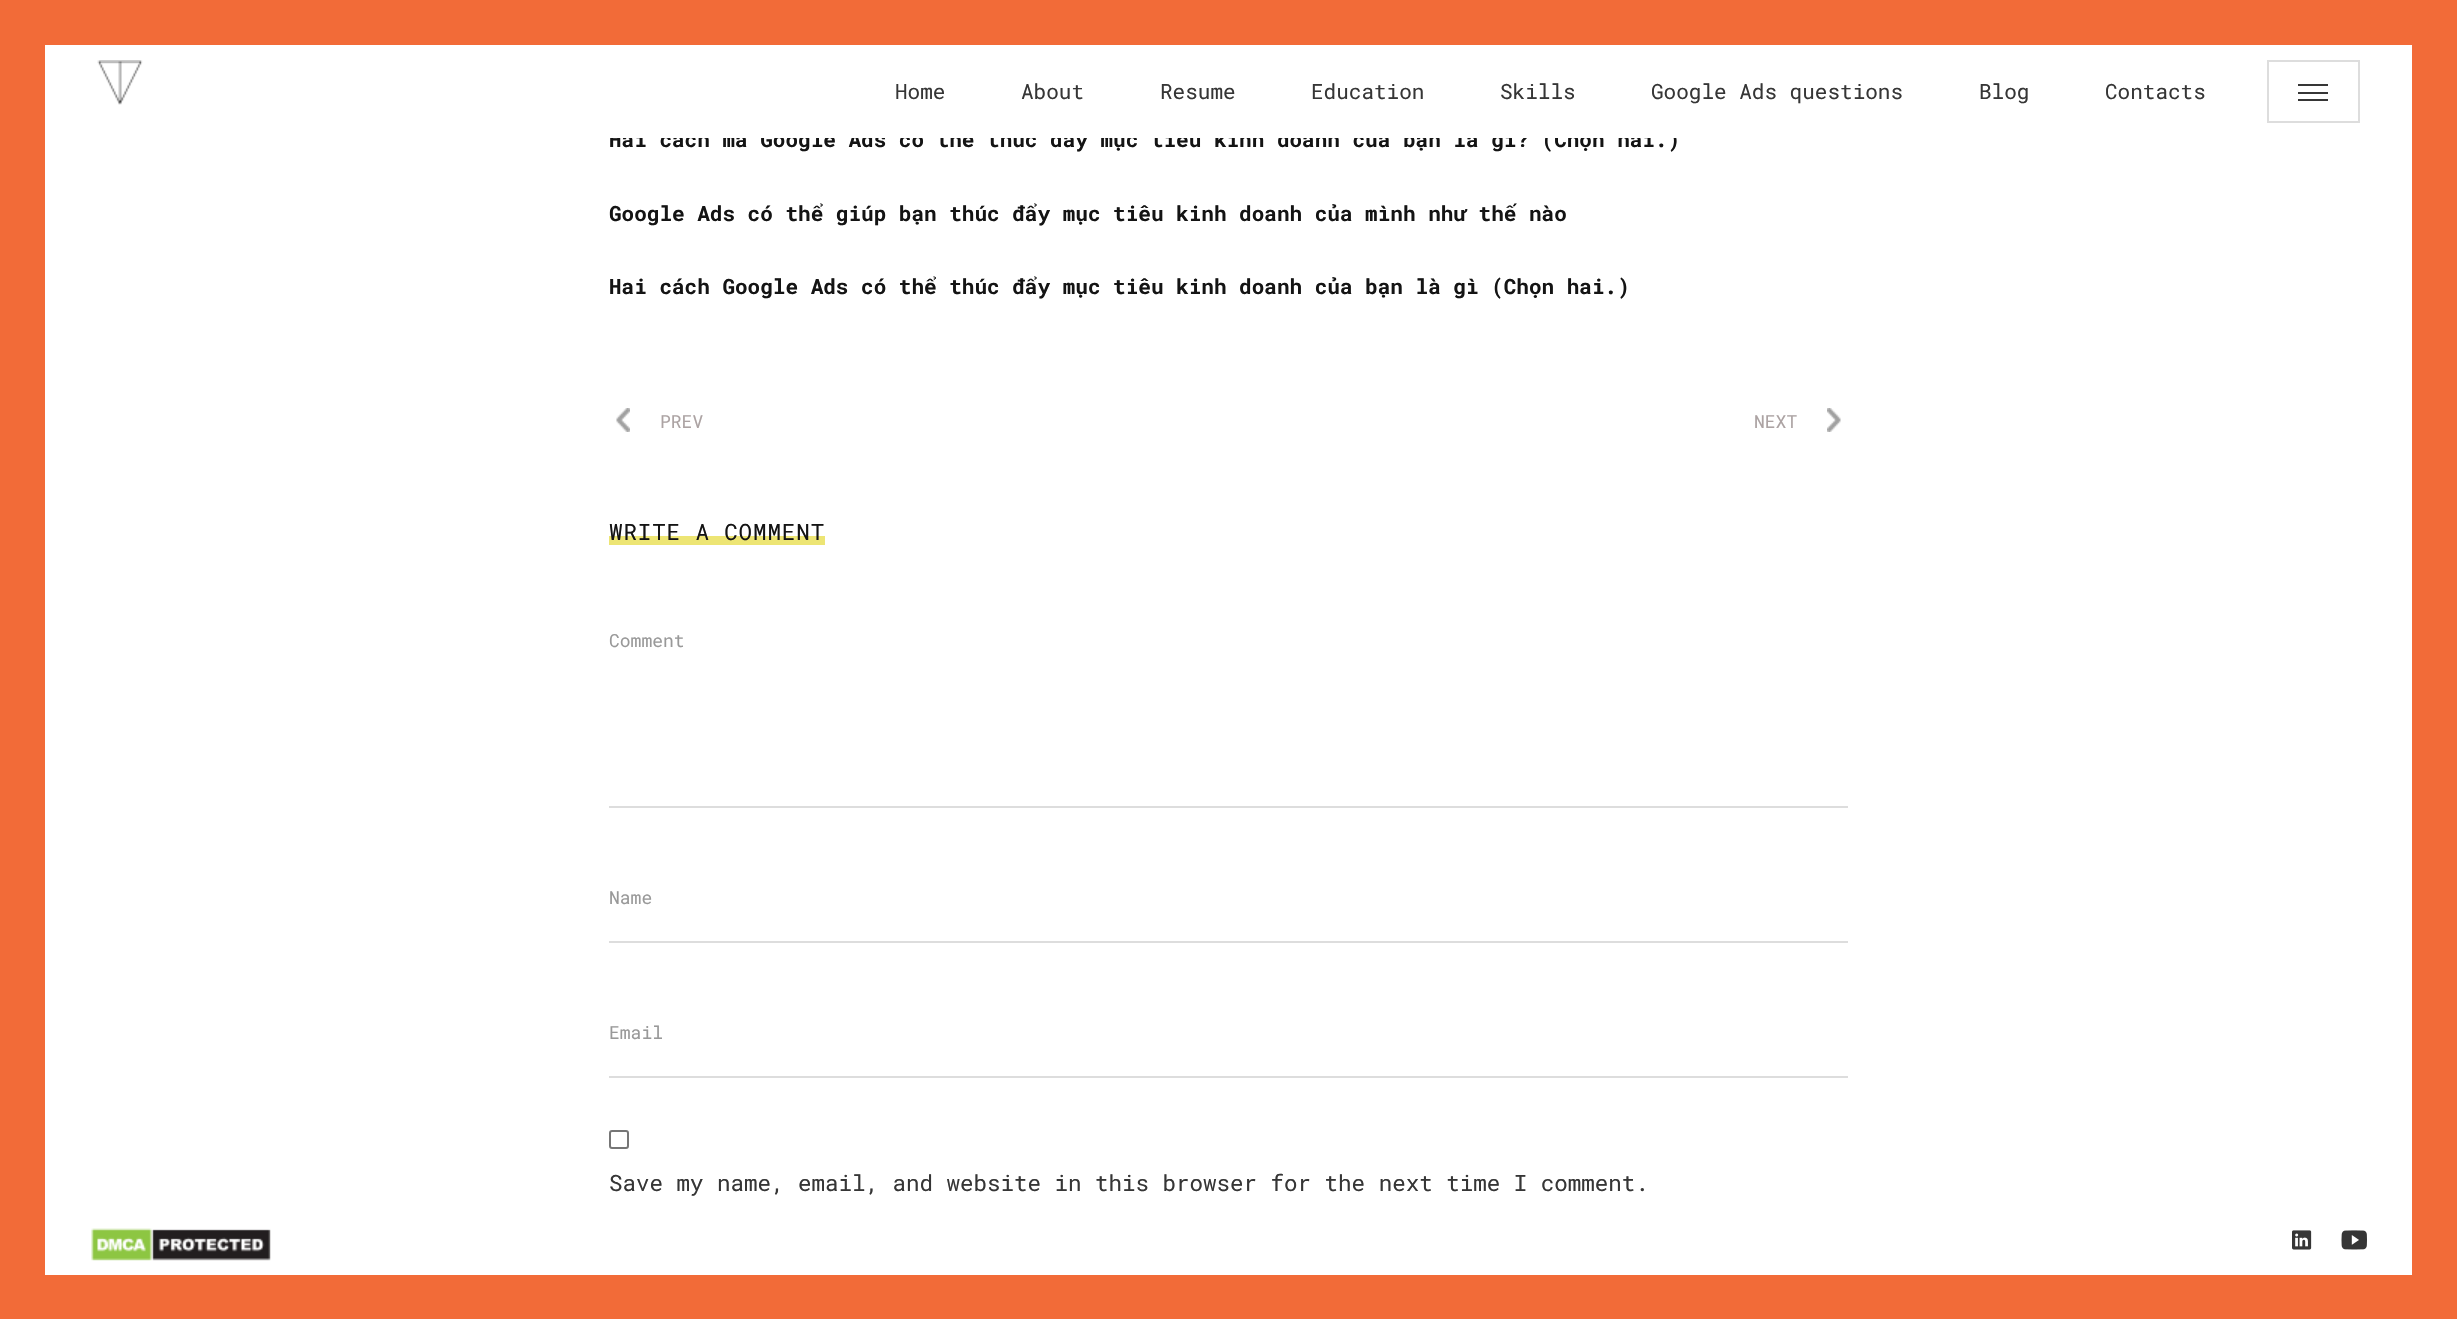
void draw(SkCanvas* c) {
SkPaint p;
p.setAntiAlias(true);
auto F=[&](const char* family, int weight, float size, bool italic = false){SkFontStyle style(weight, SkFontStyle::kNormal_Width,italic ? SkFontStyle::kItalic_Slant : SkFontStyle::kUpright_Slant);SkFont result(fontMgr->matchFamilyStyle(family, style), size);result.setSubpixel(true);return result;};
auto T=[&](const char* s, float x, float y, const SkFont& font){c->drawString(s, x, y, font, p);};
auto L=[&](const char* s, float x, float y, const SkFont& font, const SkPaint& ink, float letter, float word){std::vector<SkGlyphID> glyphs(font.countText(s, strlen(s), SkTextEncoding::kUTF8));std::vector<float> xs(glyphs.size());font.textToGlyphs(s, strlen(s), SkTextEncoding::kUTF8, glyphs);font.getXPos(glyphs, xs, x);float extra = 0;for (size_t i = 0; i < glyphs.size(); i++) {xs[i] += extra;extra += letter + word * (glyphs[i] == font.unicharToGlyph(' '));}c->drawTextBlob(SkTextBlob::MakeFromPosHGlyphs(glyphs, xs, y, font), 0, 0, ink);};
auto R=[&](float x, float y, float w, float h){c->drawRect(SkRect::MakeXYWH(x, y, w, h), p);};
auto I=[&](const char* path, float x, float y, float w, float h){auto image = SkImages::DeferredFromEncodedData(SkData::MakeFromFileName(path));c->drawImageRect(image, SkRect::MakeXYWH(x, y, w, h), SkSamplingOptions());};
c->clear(0xffffffff);
p.setColor(0xfff26b38);
R(0,0,45,1319);
R(45,0,2367,45);
R(2412,0,45,1319);
auto f1 = F("Roboto Mono",700,21);
p.setColor(0xff141414);
T("Hai cách mà Google Ads có thể thúc đẩy mục tiêu kinh doanh của bạn là gì? (Chọn hai.)",609,147,f1);
p.setColor(0xffffffff);
R(610,129,1067,9);
I("1.png",97,60,46,45);
auto f2 = F("Roboto Mono",400,21);
p.setColor(0xff363636);
T("Home",895,99,f2);
T("About",1021,99,f2);
T("Resume",1160,99,f2);
T("Education",1311,99,f2);
T("Skills",1500,99,f2);
T("Google Ads questions",1651,99,f2);
T("Blog",1979,99,f2);
T("Contacts",2105,99,f2);
p.setStroke(true);
p.setStrokeWidth(2);
p.setColor(0xffdddddd);
c->drawRect(SkRect::MakeXYWH(2268,61,91,61),p);
p.setStroke(false);
p.setColor(0xff363636);
R(2298,92,30,2);
R(2298,84,30,2);
R(2298,99,30,2);
p.setColor(0xff141414);
T("Google Ads có thể giúp bạn thúc đẩy mục tiêu kinh doanh của mình như thế nào",609,221,f1);
T("Hai cách Google Ads có thể thúc đẩy mục tiêu kinh doanh của bạn là gì (Chọn hai.)",609,294,f1);
I("2.png",616,408,14,24);
auto f3 = F("Roboto Mono",400,18);
p.setColor(0xffaca3a3);
T("PREV",660,428,f3);
T("NEXT",1754,428,f3);
I("3.png",1827,408,14,24);
p.setColor(0xffede574);
R(609,536,216,9);
auto f4 = F("Roboto Mono",400,22.5);
p.setColor(0xff141414);
L("WRITE A COMMENT",609,540,f4,p,.9,0);
p.setColor(0xffdddddd);
R(609,806,1239,2);
p.setColor(0xff999999);
T("Comment",609,647,f3);
p.setColor(0xffdddddd);
R(609,941,1239,2);
p.setColor(0xff999999);
T("Name",609,904,f3);
p.setColor(0xffdddddd);
R(609,1076,1239,2);
p.setColor(0xff999999);
T("Email",609,1039,f3);
p.setStroke(true);
p.setColor(0xff767676);
c->drawRoundRect(SkRect::MakeXYWH(610,1131,18,17),2,2,p);
p.setStroke(false);
p.setColor(0xff363636);
T("Save my name, email, and website in this browser for the next time I comment.",609,1191,f4);
I("4.png",91,1228,180,33);
I("5.png",2292,1230,20,20);
I("6.png",2341,1230,26,20);
p.setColor(0xfff26b38);
R(45,1275,2367,44);
}
